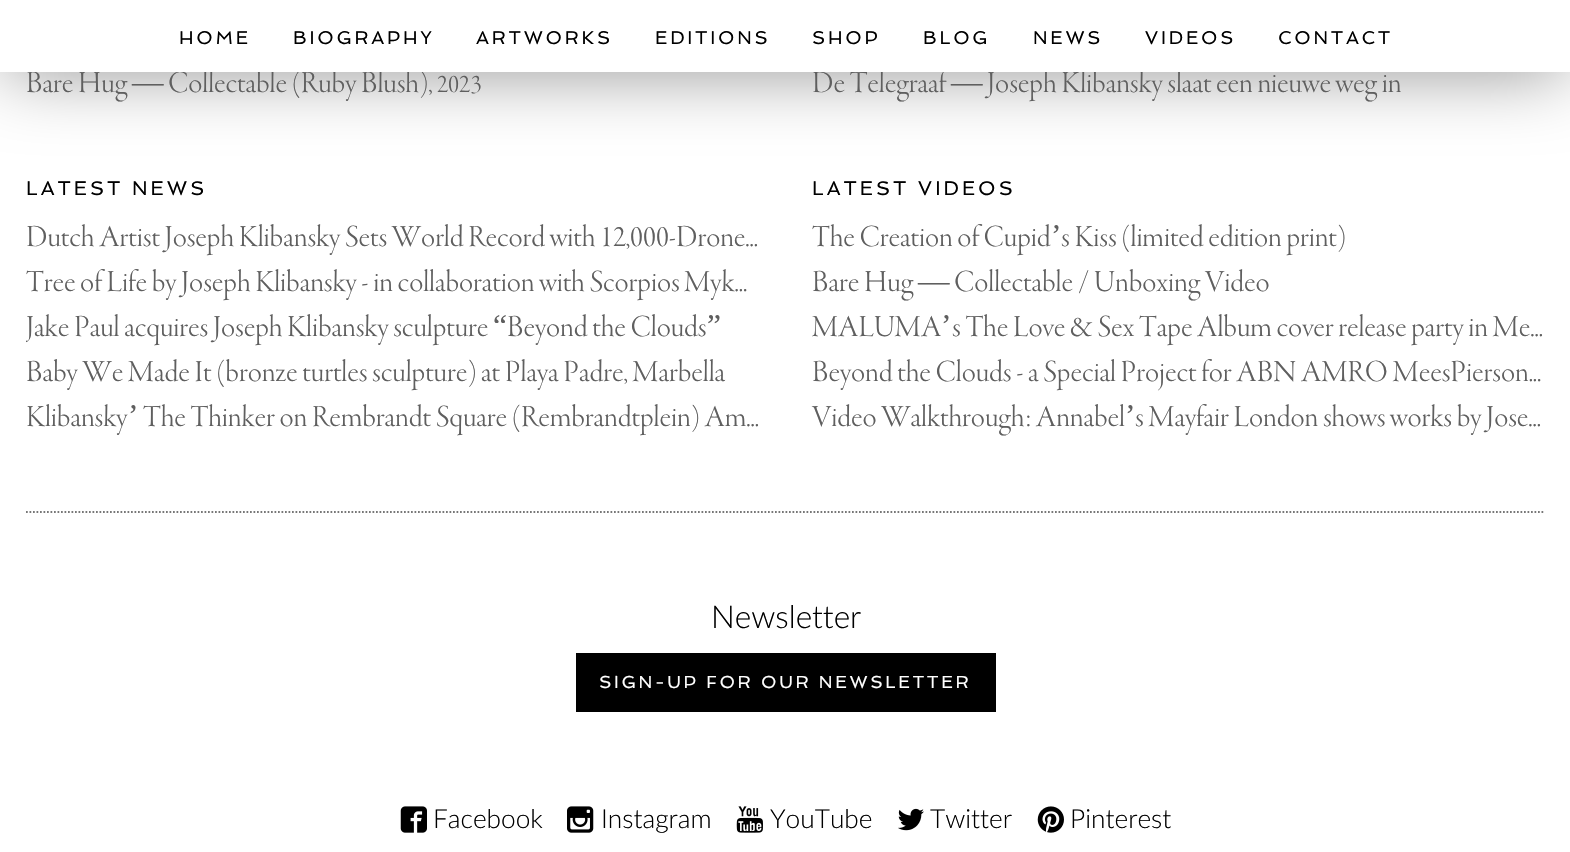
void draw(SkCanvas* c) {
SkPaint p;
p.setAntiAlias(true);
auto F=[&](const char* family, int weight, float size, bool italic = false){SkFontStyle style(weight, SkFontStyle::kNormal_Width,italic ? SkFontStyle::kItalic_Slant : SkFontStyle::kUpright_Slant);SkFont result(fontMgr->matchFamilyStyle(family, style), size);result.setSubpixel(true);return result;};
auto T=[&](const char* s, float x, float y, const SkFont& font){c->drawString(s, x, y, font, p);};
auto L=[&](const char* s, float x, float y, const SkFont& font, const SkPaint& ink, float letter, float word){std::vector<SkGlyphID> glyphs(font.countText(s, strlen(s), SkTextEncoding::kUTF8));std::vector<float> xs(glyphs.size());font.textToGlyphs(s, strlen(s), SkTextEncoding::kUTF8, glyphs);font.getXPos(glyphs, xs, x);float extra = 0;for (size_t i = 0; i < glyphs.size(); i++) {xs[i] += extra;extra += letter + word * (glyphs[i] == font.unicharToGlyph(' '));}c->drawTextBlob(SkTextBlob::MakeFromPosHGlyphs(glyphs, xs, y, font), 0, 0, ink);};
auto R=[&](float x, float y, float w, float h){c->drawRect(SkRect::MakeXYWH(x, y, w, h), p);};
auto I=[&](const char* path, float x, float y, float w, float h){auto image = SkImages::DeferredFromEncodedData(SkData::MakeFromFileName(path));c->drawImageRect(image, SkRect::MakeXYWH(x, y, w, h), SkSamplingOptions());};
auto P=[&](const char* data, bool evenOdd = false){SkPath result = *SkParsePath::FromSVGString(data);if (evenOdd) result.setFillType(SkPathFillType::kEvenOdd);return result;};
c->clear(0xffffffff);
p.setColor(0x80000000);
p.setMaskFilter(SkMaskFilter::MakeBlur(kNormal_SkBlurStyle, 37.5));
c->drawRect(SkRect::MakeXYWH(5,5,1561,62),p);
p.setMaskFilter(nullptr);
auto f1 = F("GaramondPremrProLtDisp",200,31.5);
p.setColor(0xff5f5f5f);
T("Bare Hug",26,92,f1);
T("Collectable (Ruby Blush),",168,92,f1);
T("De Telegraaf",812,92,f1);
T("Joseph Klibansky slaat een nieuwe weg in",987,92,f1);
p.setColor(0xffffffff);
R(0,0,1570,72);
auto f2 = F("Spinnaker",400,18.5);
p.setColor(0xff000000);
L("HOME",179,44,f2,p,2.75,0);
L("BIOGRAPHY",293,44,f2,p,2.75,0);
L("ARTWORKS",476,44,f2,p,2.75,0);
L("EDITIONS",655,44,f2,p,2.75,0);
L("SHOP",812,44,f2,p,2.75,0);
L("BLOG",923,44,f2,p,2.75,0);
L("NEWS",1033,44,f2,p,2.75,0);
L("VIDEOS",1145,44,f2,p,2.75,0);
L("CONTACT",1278,44,f2,p,2.75,0);
auto f3 = F("Liberation Serif",400,31.5);
p.setColor(0xff5f5f5f);
T("—",132,92,f3);
auto f4 = F("GaramondPremrProLtDisp",200,27);
T("2023",437,92,f4);
T("—",951,92,f3);
auto f5 = F("Spinnaker",400,19.75);
p.setColor(0xff000000);
L("LATEST NEWS",26,195,f5,p,3,0);
p.setColor(0xff5f5f5f);
T("Dutch Artist Joseph Klibansky Sets World Record with 12,000-Drone...",26,246,f1);
T("Tree of Life by Joseph Klibansky - in collaboration with Scorpios Myk...",26,291,f1);
c->save();
c->clipRect(SkRect::MakeXYWH(26,306,734,46));
T("Jake Paul acquires Joseph Klibansky sculpture",26,336,f1);
c->restore();
T("“",493,336,f3);
T("Beyond the Clouds",507,336,f1);
T("”",707,336,f3);
T("Baby We Made It (bronze turtles sculpture) at Playa Padre, Marbella",26,381,f1);
T("Klibansky",26,426,f1);
T("’",128,426,f3);
T("The Thinker on Rembrandt Square (Rembrandtplein) Am...",143,426,f1);
p.setColor(0xff000000);
L("LATEST VIDEOS",812,195,f5,p,3,0);
p.setColor(0xff5f5f5f);
T("The Creation of Cupid",812,246,f1);
T("’",1051,246,f3);
T("s Kiss (limited edition print)",1061,246,f1);
T("Bare Hug",812,291,f1);
T("—",918,291,f3);
T("Collectable / Unboxing Video",954,291,f1);
T("MALUMA",812,336,f1);
T("’",941,336,f3);
T("s The Love & Sex Tape Album cover release party in Me...",952,336,f1);
T("Beyond the Clouds - a Special Project for ABN AMRO MeesPierson...",812,381,f1);
T("Video Walkthrough: Annabel",812,426,f1);
T("’",1125,426,f3);
T("s Mayfair London shows works by Jose...",1135,426,f1);
p.setStroke(true);
p.setStrokeWidth(1.8);
p.setColor(0xff777777);
p.setPathEffect(SkDashPathEffect::Make({{1.75f,1.75f}}, 0));
c->drawPath(P("M26 512h1519"),p);
p.setPathEffect(nullptr);
auto f6 = F("Lato",300,31.5);
p.setStroke(false);
p.setColor(0xff000000);
T("Newsletter",711,628,f6);
R(576,653,420,59);
auto f7 = F("Spinnaker",400,17.5);
p.setColor(0xffffffff);
L("SIGN-UP FOR OUR NEWSLETTER",599,688,f7,p,2.6,0);
I("1.png",400,806,27,27);
auto f8 = F("Lato",300,26.25);
p.setColor(0xff000000);
T("Facebook",433,828,f8);
I("2.png",567,806,27,27);
T("Instagram",601,828,f8);
I("3.png",736,806,27,27);
T("YouTube",770,828,f8);
I("4.png",898,808,26,23);
T("Twitter",930,828,f8);
I("5.png",1037,806,27,27);
T("Pinterest",1070,828,f8);
}
